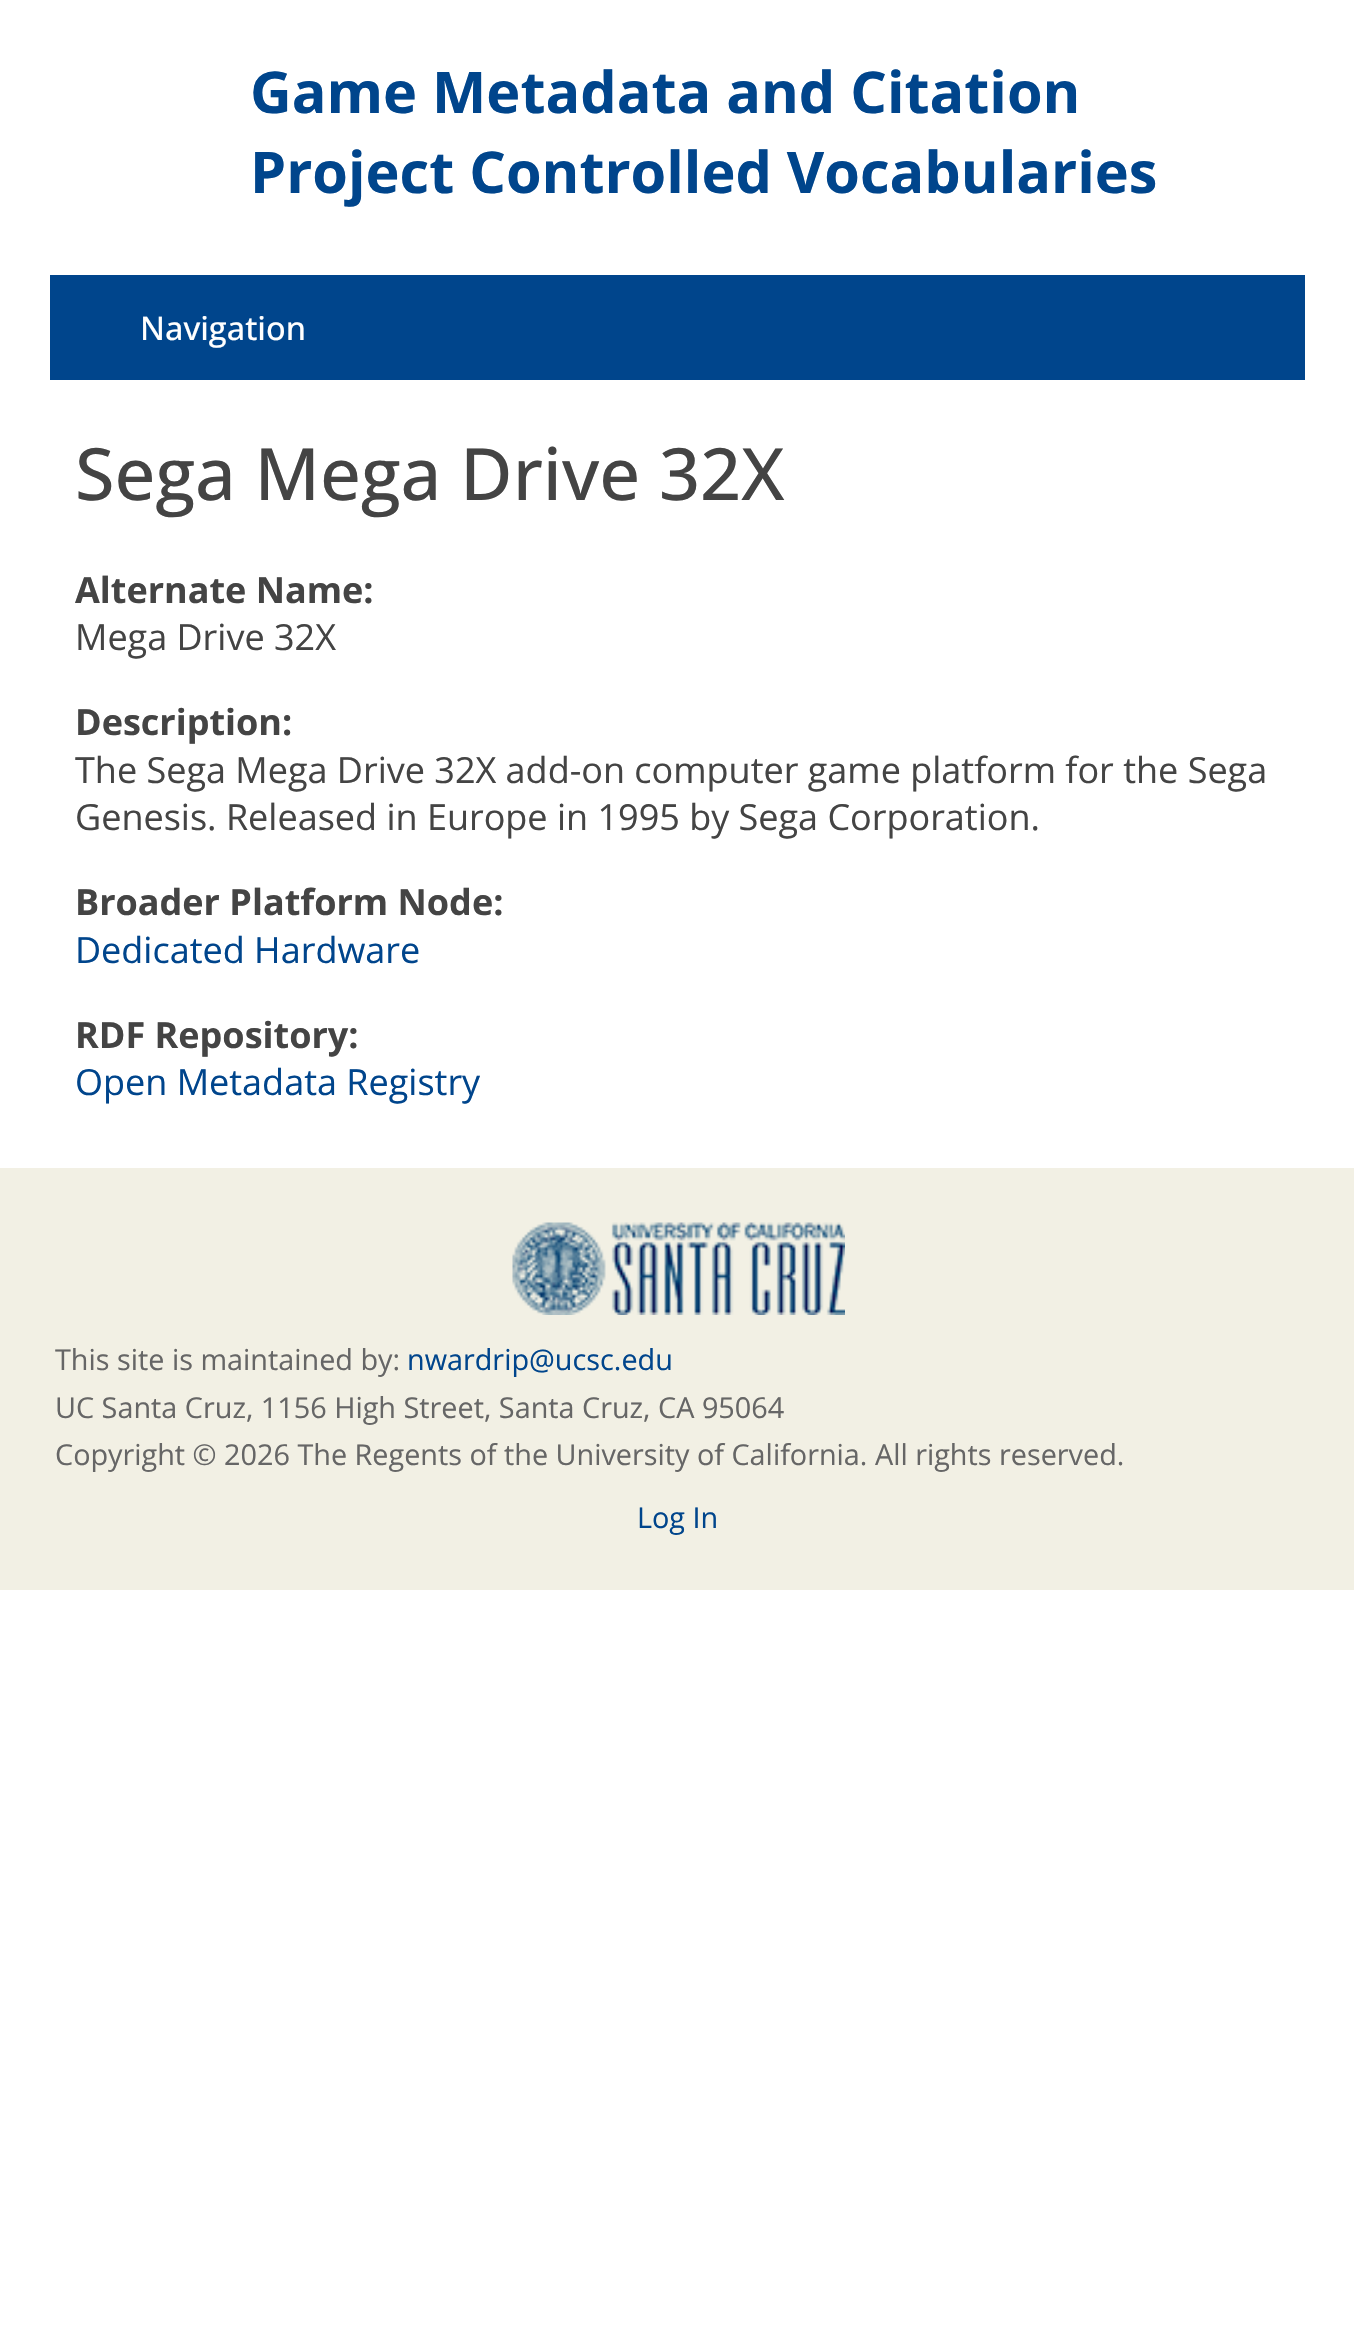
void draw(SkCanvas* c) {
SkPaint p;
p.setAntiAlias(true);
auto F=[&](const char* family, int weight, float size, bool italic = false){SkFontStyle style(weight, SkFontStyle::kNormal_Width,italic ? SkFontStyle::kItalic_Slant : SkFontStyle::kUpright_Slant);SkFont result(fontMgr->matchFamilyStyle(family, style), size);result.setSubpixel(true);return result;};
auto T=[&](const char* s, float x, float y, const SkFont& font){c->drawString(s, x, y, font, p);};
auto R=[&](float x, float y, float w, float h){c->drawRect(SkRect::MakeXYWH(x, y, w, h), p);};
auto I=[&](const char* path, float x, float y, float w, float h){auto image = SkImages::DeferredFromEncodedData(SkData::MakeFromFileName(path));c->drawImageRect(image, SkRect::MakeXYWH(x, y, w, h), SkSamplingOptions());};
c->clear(0xffffffff);
auto f1 = F("Open Sans",700,57.6);
p.setColor(0xff00458c);
T("Game Metadata and Citation",250,113,f1);
T("Project Controlled Vocabularies",250,193,f1);
R(50,275,1255,105);
auto f2 = F("Open Sans",500,32.5);
p.setColor(0xffffffff);
T("Navigation",140,340,f2);
auto f3 = F("Open Sans",500,72);
p.setColor(0xff444444);
T("Sega Mega Drive 32X",75,500,f3);
auto f4 = F("Open Sans",700,36);
T("Alternate Name:",75,603,f4);
auto f5 = F("Open Sans",400,36);
T("Mega Drive 32X",75,650,f5);
T("Description:",75,735,f4);
T("The Sega Mega Drive 32X add-on computer game platform for the Sega",75,783,f5);
T("Genesis. Released in Europe in 1995 by Sega Corporation.",75,830,f5);
T("Broader Platform Node:",75,915,f4);
p.setColor(0xff00458c);
T("Dedicated Hardware",75,963,f5);
p.setColor(0xff444444);
T("RDF Repository:",75,1048,f4);
p.setColor(0xff00458c);
T("Open Metadata Registry",75,1095,f5);
p.setColor(0xfff2f0e4);
R(0,1168,1354,422);
I("1.png",512,1222,333,93);
auto f6 = F("Open Sans",400,28.8);
p.setColor(0xff666666);
T("This site is maintained by:",55,1370,f6);
p.setColor(0xff00458c);
T("nwardrip@ucsc.edu",407,1370,f6);
p.setColor(0xff666666);
T("UC Santa Cruz, 1156 High Street, Santa Cruz, CA 95064",55,1418,f6);
T("Copyright © 2026 The Regents of the University of California. All rights reserved.",55,1465,f6);
p.setColor(0xff00458c);
T("Log In",637,1528,f6);
}
